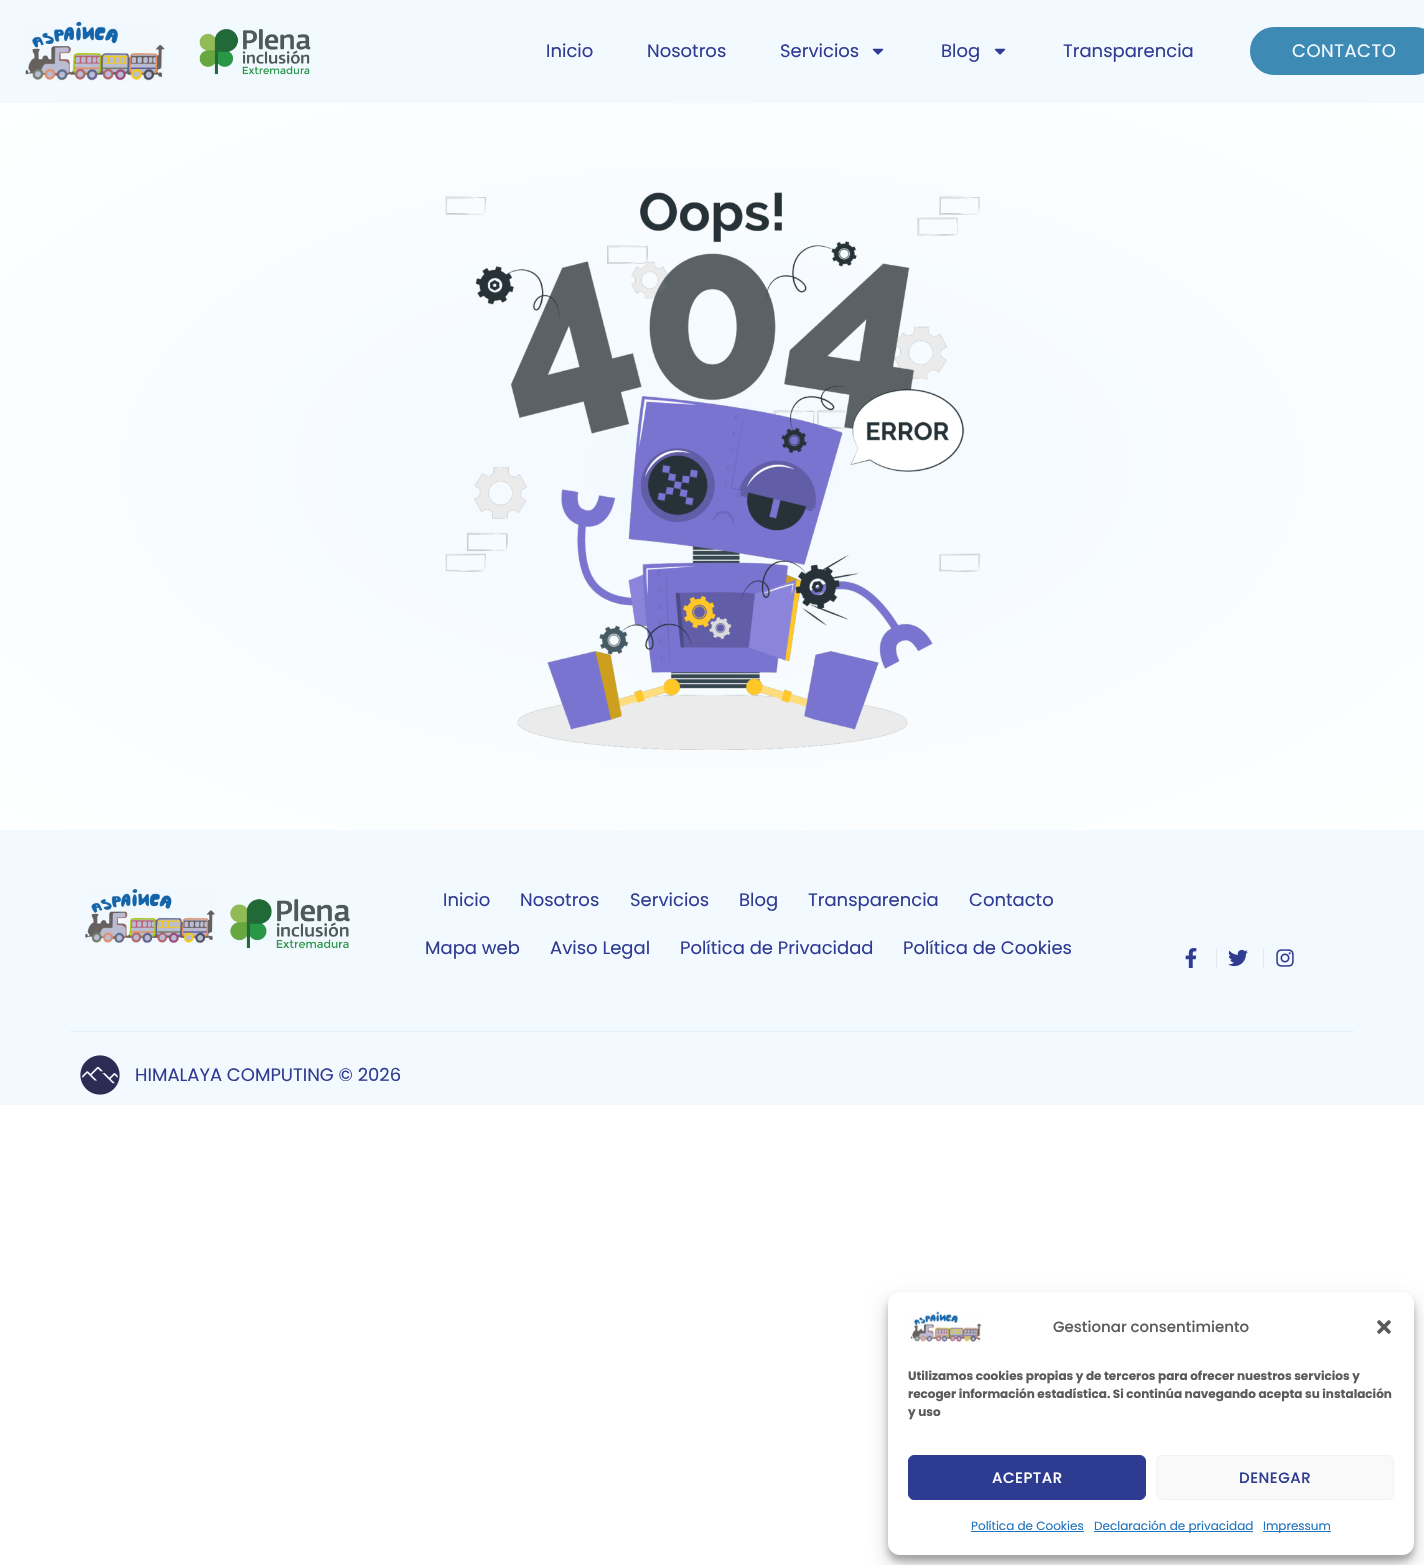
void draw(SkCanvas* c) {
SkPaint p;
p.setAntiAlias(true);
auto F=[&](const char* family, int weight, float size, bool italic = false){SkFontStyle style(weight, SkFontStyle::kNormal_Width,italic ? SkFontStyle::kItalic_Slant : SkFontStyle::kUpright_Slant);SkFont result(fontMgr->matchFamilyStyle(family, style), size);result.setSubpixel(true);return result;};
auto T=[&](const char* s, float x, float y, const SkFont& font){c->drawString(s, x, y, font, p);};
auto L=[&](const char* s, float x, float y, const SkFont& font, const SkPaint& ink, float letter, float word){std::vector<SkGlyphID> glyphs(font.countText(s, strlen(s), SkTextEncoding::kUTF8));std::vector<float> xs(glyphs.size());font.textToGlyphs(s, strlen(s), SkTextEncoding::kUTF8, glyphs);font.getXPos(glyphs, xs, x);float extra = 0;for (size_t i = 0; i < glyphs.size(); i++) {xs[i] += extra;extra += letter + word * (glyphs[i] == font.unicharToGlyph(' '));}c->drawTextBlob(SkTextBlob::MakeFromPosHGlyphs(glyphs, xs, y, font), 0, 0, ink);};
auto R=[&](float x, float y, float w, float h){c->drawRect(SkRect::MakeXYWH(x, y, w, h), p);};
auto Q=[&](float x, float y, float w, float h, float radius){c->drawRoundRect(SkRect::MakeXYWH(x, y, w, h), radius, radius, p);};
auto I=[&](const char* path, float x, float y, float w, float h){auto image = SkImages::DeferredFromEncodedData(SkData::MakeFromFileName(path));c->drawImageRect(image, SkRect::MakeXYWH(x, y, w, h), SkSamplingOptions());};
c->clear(0xffffffff);
p.setColor(0xfff2f9ff);
R(0,0,1424,103);
I("1.png",25,21,140,60);
I("2.png",199,29,112,46);
auto f1 = F("Poppins",400,18);
p.setColor(0xff2f3c92);
T("Inicio",546,57,f1);
T("Nosotros",647,57,f1);
T("Servicios",780,57,f1);
I("3.png",872,48,12,7);
T("Blog",941,57,f1);
I("3.png",994,48,12,7);
T("Transparencia",1063,57,f1);
p.setColor(0xff3d8ab4);
c->drawRoundRect(SkRect::MakeXYWH(1251,28,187,46),23,23,p);
p.setStroke(true);
p.setStrokeWidth(2);
c->drawRoundRect(SkRect::MakeXYWH(1251,28,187,46),23,23,p);
p.setStroke(false);
p.setColor(0xfff2f9ff);
L("CONTACTO",1292,57,f1,p,.5,0);
{
const SkColor colors[] = {0xfff2f9ff,0xfffeffff};
const float stops[] = {0,1};
SkMatrix m = SkMatrix::Translate(712,467).preScale(1007,514);
p.setShader(SkGradientShader::MakeRadial({0, 0}, 1, colors, stops, 2, SkTileMode::kClamp, 0, &m));
p.setAlpha(255);
}
R(0,103,1424,727);
I("4.png",445,192,535,558);
p.setShader(nullptr);
p.setColor(0xfff2f9ff);
R(0,830,1424,275);
I("5.png",85,888,130,55);
I("6.png",230,899,120,50);
p.setColor(0xff2f3c92);
T("Inicio",443,906,f1);
T("Nosotros",520,906,f1);
T("Servicios",630,906,f1);
T("Blog",739,906,f1);
T("Transparencia",808,906,f1);
T("Contacto",969,906,f1);
T("Mapa web",425,954,f1);
T("Aviso Legal",550,954,f1);
T("Política de Privacidad",680,954,f1);
T("Política de Cookies",903,954,f1);
I("7.png",1185,948,12,20);
p.setColor(0xffe6e9ec);
R(1216,948,1,20);
I("8.png",1228,949,20,18);
R(1263,948,1,20);
I("9.png",1276,949,18,18);
p.setColor(0xffe7eff6);
R(70,1031,1284,1);
I("10.png",80,1055,40,40);
p.setColor(0xff2f3c92);
T("HIMALAYA COMPUTING © 2026",135,1081,f1);
p.setColor(0x3b000000);
p.setMaskFilter(SkMaskFilter::MakeBlur(kNormal_SkBlurStyle, 3));
c->drawRoundRect(SkRect::MakeXYWH(888,1298,526,263),12,12,p);
p.setMaskFilter(nullptr);
p.setColor(0x30000000);
p.setMaskFilter(SkMaskFilter::MakeBlur(kNormal_SkBlurStyle, 10));
c->drawRoundRect(SkRect::MakeXYWH(888,1302,526,263),12,12,p);
p.setMaskFilter(nullptr);
p.setColor(0xffffffff);
Q(888,1292,526,263,12);
I("11.png",910,1311,72,31);
auto f2 = F("Poppins",500,15);
p.setColor(0xff5c5b5b);
T("Gestionar consentimiento",1053,1332,f2);
I("12.png",1377,1320,14,14);
auto f3 = F("Poppins",700,12);
T("Utilizamos cookies propias y de terceros para ofrecer nuestros servicios y",908,1380,f3);
T("recoger información estadística. Si continúa navegando acepta su instalación",908,1398,f3);
T("y uso",908,1416,f3);
p.setColor(0xff2d3c91);
c->drawRoundRect(SkRect::MakeXYWH(908.5,1455.5,237,44),5.5,5.5,p);
p.setStroke(true);
p.setStrokeWidth(1);
c->drawRoundRect(SkRect::MakeXYWH(908.5,1455.5,237,44),5.5,5.5,p);
p.setStroke(false);
p.setColor(0xffffffff);
L("ACEPTAR",992,1483,f2,p,.5,0);
p.setColor(0xfff9f9f9);
c->drawRoundRect(SkRect::MakeXYWH(1156.5,1455.5,237,44),5.5,5.5,p);
p.setStroke(true);
p.setColor(0xfff2f2f2);
c->drawRoundRect(SkRect::MakeXYWH(1156.5,1455.5,237,44),5.5,5.5,p);
p.setStroke(false);
p.setColor(0xff2f3c92);
L("DENEGAR",1239,1483,f2,p,.5,0);
auto f4 = F("Poppins",400,12);
p.setColor(0xff1e73be);
T("Política de Cookies",971,1530,f4);
R(971,1531,113,1);
R(1094,1531,159,1);
T("Declaración de privacidad",1094,1530,f4);
R(1263,1531,68,1);
T("Impressum",1263,1530,f4);
}
